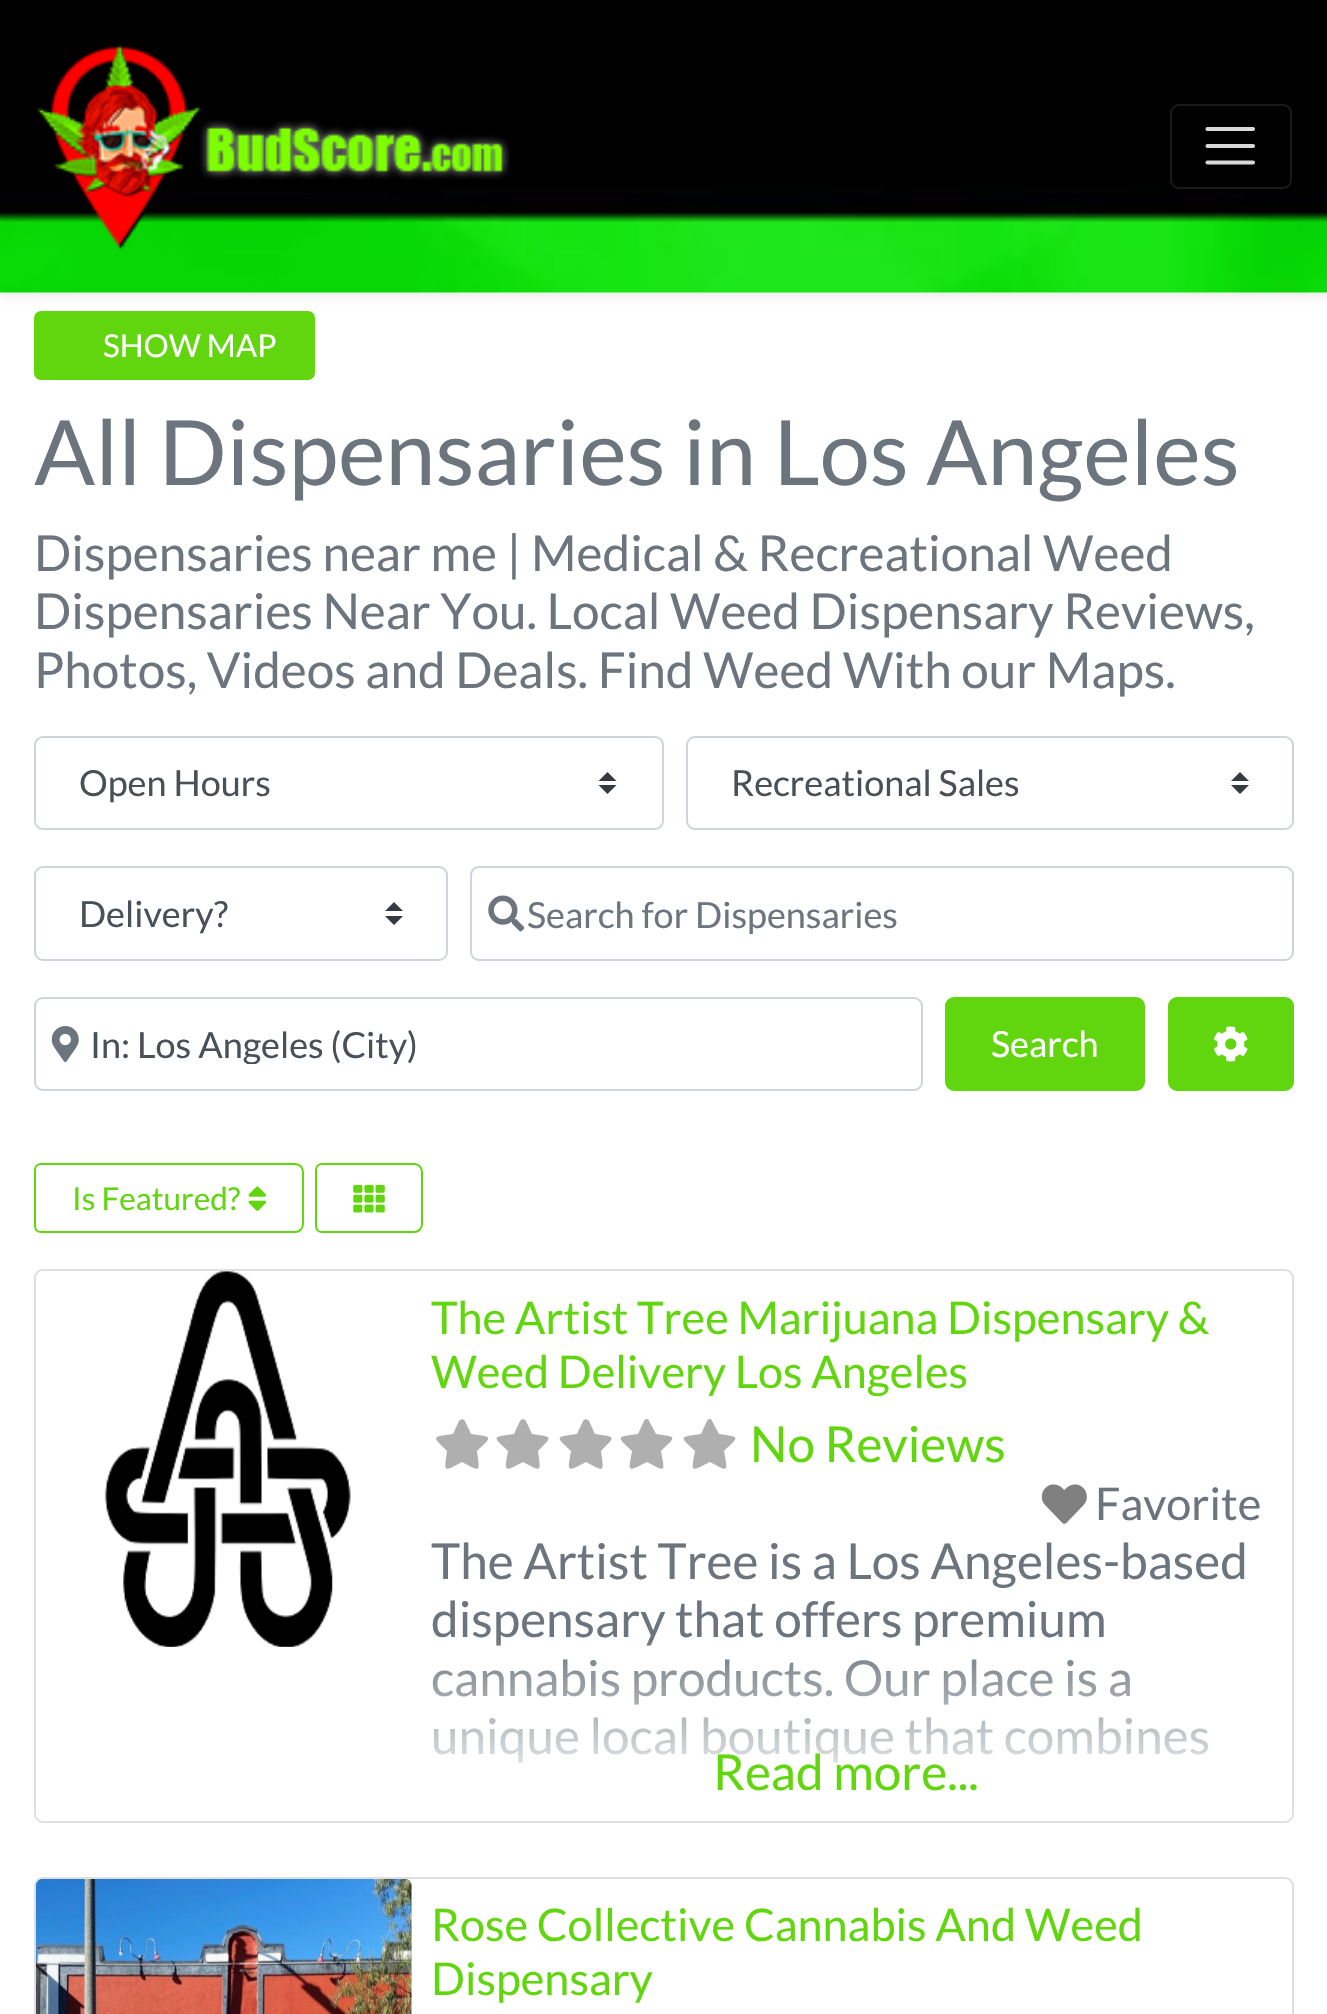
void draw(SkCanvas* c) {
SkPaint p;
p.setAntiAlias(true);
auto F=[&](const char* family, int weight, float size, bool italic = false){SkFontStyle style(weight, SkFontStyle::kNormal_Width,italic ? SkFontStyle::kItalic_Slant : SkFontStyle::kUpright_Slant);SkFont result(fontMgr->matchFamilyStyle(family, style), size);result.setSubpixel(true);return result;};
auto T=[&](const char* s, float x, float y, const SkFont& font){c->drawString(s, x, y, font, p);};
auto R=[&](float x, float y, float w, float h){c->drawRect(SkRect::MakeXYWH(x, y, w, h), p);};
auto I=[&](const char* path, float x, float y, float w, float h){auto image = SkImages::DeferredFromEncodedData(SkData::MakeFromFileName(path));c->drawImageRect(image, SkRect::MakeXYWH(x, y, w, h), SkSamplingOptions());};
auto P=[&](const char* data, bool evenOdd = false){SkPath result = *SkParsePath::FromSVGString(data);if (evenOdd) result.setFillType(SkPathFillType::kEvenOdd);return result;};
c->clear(0xffffffff);
p.setColor(0x12000000);
p.setMaskFilter(SkMaskFilter::MakeBlur(kNormal_SkBlurStyle, 4.5));
c->drawRect(SkRect::MakeXYWH(0,5,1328,292),p);
p.setMaskFilter(nullptr);
I("1.png",0,0,1327,293);
I("2.png",36,44,474,206);
p.setStroke(true);
p.setStrokeWidth(2);
p.setColor(0xff1a1a1a);
c->drawRoundRect(SkRect::MakeXYWH(1171,105,120,83),8,8,p);
p.setStrokeWidth(4.1);
p.setStrokeCap(SkPaint::kRound_Cap);
p.setColor(0xffd9d9d9);
c->drawPath(P("M1207.5 129h45.5m-45.5 17h45.5m-45.5 16.5h45.5"),p);
p.setStroke(false);
p.setColor(0xff61d60e);
c->drawRoundRect(SkRect::MakeXYWH(35,312,279,67),6,6,p);
p.setStroke(true);
p.setStrokeWidth(2);
p.setStrokeCap(SkPaint::kButt_Cap);
c->drawRoundRect(SkRect::MakeXYWH(35,312,279,67),6,6,p);
auto f1 = F("Lato",400,31.5);
p.setStroke(false);
p.setColor(0xffffffff);
T("SHOW MAP",103,357,f1);
auto f2 = F("Lato",400,90);
p.setColor(0xff6c757d);
T("All Dispensaries in Los Angeles",34,485,f2);
auto f3 = F("Lato",400,49.5);
T("Dispensaries near me | Medical & Recreational Weed",34,571,f3);
T("Dispensaries Near You. Local Weed Dispensary Reviews,",34,629,f3);
T("Photos, Videos and Deals. Find Weed With our Maps.",34,688,f3);
p.setColor(0xff343a40);
c->drawPath(P("M607.5 772l-9 9h18zm0 22l-9-9h18z"),p);
p.setStroke(true);
p.setColor(0xffced4da);
c->drawRoundRect(SkRect::MakeXYWH(35,737,628,92),8,8,p);
auto f4 = F("Lato",400,36);
p.setStroke(false);
p.setColor(0xff495057);
T("Open Hours",79,796,f4);
p.setColor(0xff343a40);
c->drawPath(P("M1240 772l-9 9h18zm0 22l-9-9h18z"),p);
p.setStroke(true);
p.setColor(0xffced4da);
c->drawRoundRect(SkRect::MakeXYWH(687,737,606,92),8,8,p);
p.setStroke(false);
p.setColor(0xff495057);
T("Recreational Sales",731,796,f4);
p.setColor(0xff343a40);
c->drawPath(P("M394 902l-9 9h18zm0 23l-9-9h18z"),p);
p.setStroke(true);
p.setColor(0xffced4da);
c->drawRoundRect(SkRect::MakeXYWH(35,867,412,93),8,8,p);
p.setStroke(false);
p.setColor(0xff495057);
T("Delivery?",79,927,f4);
p.setStroke(true);
p.setColor(0xffced4da);
c->drawRoundRect(SkRect::MakeXYWH(471,867,822,93),8,8,p);
I("3.png",488,895,37,37);
c->save();
c->clipRect(SkRect::MakeXYWH(527,891,722,43));
p.setStroke(false);
p.setColor(0xff6c757d);
T("Search for Dispensaries",527,928,f4);
c->restore();
p.setStroke(true);
p.setColor(0xffced4da);
c->drawRoundRect(SkRect::MakeXYWH(35,998,887,92),8,8,p);
I("4.png",51,1026,28,36);
c->save();
c->clipRect(SkRect::MakeXYWH(90,1022,788,42));
p.setStroke(false);
p.setColor(0xff495057);
T("In: Los Angeles (City)",90,1058,f4);
c->restore();
p.setColor(0xff61d60e);
c->drawRoundRect(SkRect::MakeXYWH(946,998,198,92),8,8,p);
p.setStroke(true);
c->drawRoundRect(SkRect::MakeXYWH(946,998,198,92),8,8,p);
p.setStroke(false);
p.setColor(0xffffffff);
T("Search",991,1057,f4);
p.setColor(0xff61d60e);
c->drawRoundRect(SkRect::MakeXYWH(1169,998,124,92),8,8,p);
p.setStroke(true);
c->drawRoundRect(SkRect::MakeXYWH(1169,998,124,92),8,8,p);
I("5.png",1214,1026,34,36);
c->drawPath(P("M41 1164h254c4.5 0 8 3.5 8 8v52c0 4.5-3.5 8-8 8h-254c-3.5 0-6-2.5-6-6v-56c0-3.5 2.5-6 6-6z"),p);
p.setStroke(false);
T("Is Featured?",72,1210,f1);
I("6.png",248,1186,19,25);
p.setStroke(true);
c->drawPath(P("M322 1164h92c4.5 0 8 3.5 8 8v52c0 4.5-3.5 8-8 8h-92c-3.5 0-6-2.5-6-6v-56c0-3.5 2.5-6 6-6z"),p);
I("7.png",353,1184,32,29);
p.setColor(0xffdfdfdf);
c->drawRoundRect(SkRect::MakeXYWH(35,1270,1258,552),8,8,p);
I("8.png",36,1271,315,376);
auto f5 = F("Lato",400,45);
p.setStroke(false);
p.setColor(0xff61d60e);
T("The Artist Tree Marijuana Dispensary &",431,1334,f5);
T("Weed Delivery Los Angeles",431,1388,f5);
p.setColor(0xffafafaf);
c->drawPath(P("M459 1421c1-1 2-2 3-2c1 0 2 1 3 2l6 13c22 3 22 2 6 17c3 22 4 21-15 11c-19 10-18 11-15-11c-15-15-16-14 6-17z"),p);
c->drawPath(P("M520 1421c1-1 2-2 3-2c1 0 2 1 3 2l6 13c21 3 21 2 6 17c3 22 4 21-15 11c-19 10-19 11-15-11c-16-15-16-14 6-17z"),p);
c->drawPath(P("M583 1421c1-1 2-2 3-2c1 0 2 1 3 2l6 13c21 3 21 2 6 17c3 22 4 21-15 11c-19 10-19 11-15-11c-16-15-16-14 6-17z"),p);
c->drawPath(P("M644 1421c0-1 1-2 3-2c1 0 2 1 2 2l7 13c21 3 21 2 5 17c4 22 5 21-14 11c-20 10-19 11-15-11c-16-15-16-14 6-17z"),p);
c->drawPath(P("M707 1421c0-1 1-2 3-2c1 0 2 1 2 2l7 13c21 3 21 2 5 17c4 22 5 21-14 11c-20 10-19 11-15-11c-16-15-16-14 6-17z"),p);
p.setColor(0xff61d60e);
T("No Reviews",750,1462,f3);
I("9.png",1041,1484,46,40);
p.setColor(0xff6c757d);
T("Favorite",1095,1520,f5);
T("The Artist Tree is a Los Angeles-based",431,1579,f3);
T("dispensary that offers premium",431,1637,f3);
T("cannabis products. Our place is a",431,1696,f3);
T("unique local boutique that combines",431,1754,f3);
{
const SkColor colors[] = {0x00ffffff,0xffffffff};
const float stops[] = {0,1};
const SkPoint ends[] = {{845,1636}, {845,1802}};
p.setShader(SkGradientShader::MakeLinear(ends, colors, stops, 2, SkTileMode::kClamp));
p.setAlpha(255);
}
R(432,1640,776,123);
p.setShader(nullptr);
p.setColor(0xff61d60e);
T("Read more...",713,1790,f3);
p.setStroke(true);
p.setColor(0xffdfdfdf);
c->drawRoundRect(SkRect::MakeXYWH(35,1878,1258,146),8,8,p);
I("10.png",36,1879,376,135);
p.setStroke(false);
p.setColor(0xff61d60e);
T("Rose Collective Cannabis And Weed",431,1941,f5);
T("Dispensary",431,1995,f5);
}
